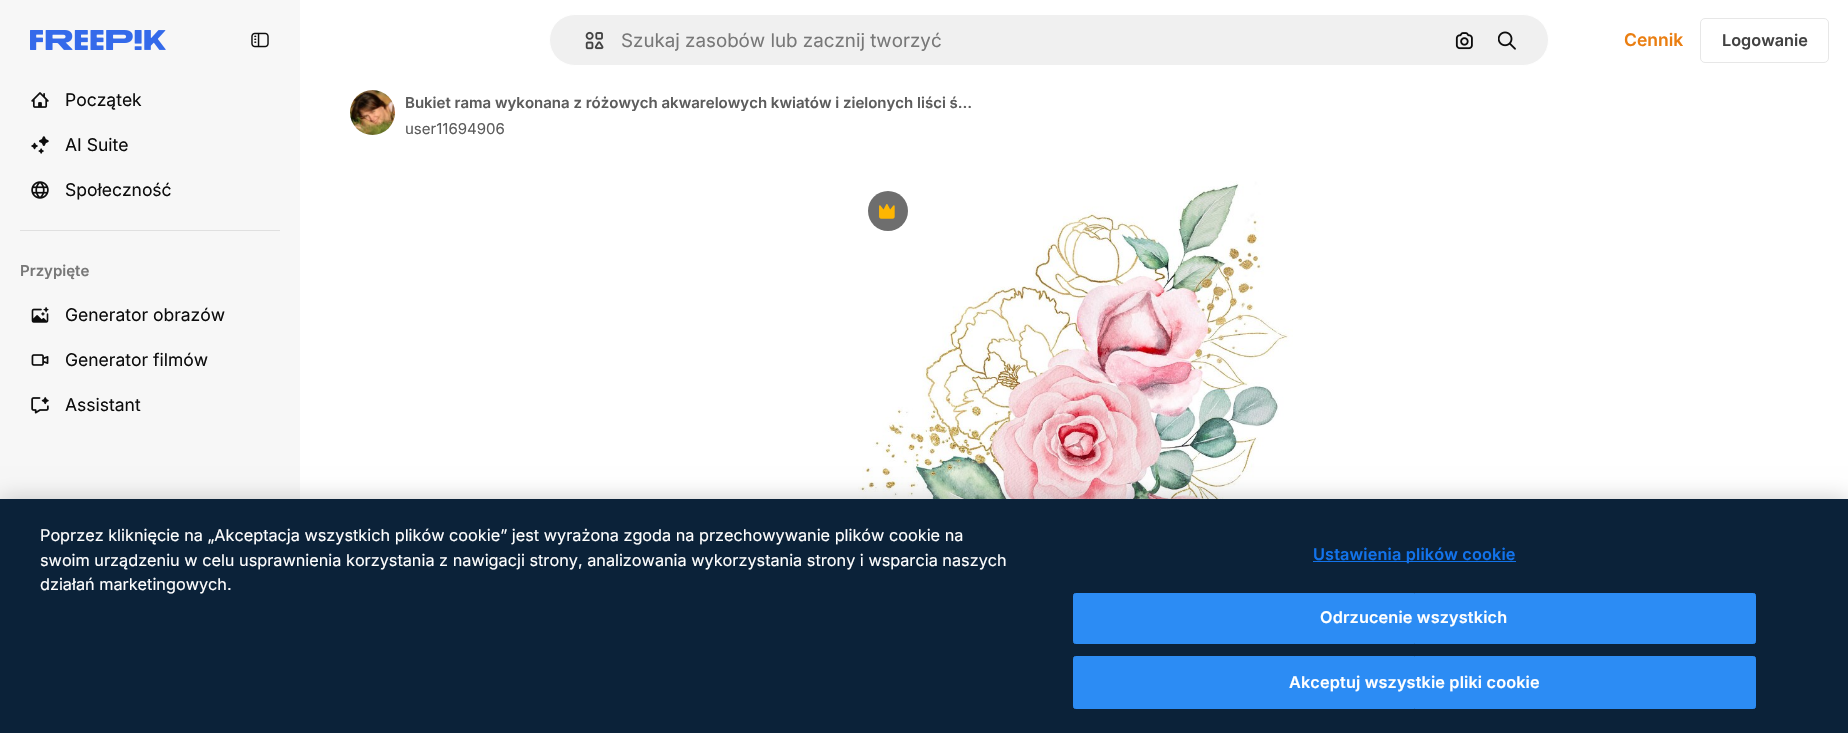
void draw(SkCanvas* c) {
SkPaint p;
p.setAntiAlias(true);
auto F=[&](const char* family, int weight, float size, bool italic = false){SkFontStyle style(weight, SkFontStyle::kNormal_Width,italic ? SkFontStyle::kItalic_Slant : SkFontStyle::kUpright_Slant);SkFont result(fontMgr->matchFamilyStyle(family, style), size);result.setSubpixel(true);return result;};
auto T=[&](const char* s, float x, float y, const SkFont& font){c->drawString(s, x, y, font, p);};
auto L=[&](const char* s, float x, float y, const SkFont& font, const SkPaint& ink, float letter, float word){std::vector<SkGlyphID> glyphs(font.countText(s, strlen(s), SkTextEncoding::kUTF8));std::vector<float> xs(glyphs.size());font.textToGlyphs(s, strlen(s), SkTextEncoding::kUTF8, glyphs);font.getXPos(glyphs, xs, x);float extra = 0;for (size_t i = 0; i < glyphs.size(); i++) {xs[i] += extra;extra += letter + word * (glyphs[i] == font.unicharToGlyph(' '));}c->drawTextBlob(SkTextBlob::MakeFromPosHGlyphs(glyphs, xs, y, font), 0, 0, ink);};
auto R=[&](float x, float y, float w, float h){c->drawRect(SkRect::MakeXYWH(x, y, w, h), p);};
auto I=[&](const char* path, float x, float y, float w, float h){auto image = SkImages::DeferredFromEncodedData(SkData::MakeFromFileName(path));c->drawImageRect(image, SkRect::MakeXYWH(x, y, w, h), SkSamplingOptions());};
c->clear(0xffffffff);
p.setColor(0xfff7f7f7);
R(0,0,300,499);
I("1.png",30,30,136,20);
I("2.png",251,32,18,16);
I("3.png",31,92,18,16);
auto f1 = F("Inter",400,17.5);
p.setColor(0xff0d0d0d);
T("Początek",65,106,f1);
I("4.png",31,136,18,18);
T("AI Suite",65,151,f1);
I("5.png",31,181,18,18);
T("Społeczność",65,196,f1);
p.setColor(0xffe0e0e0);
R(20,230,260,1);
auto f2 = F("Inter",600,15);
p.setColor(0xff787878);
T("Przypięte",20,276,f2);
I("6.png",31,307,18,16);
p.setColor(0xff0d0d0d);
T("Generator obrazów",65,321,f1);
I("7.png",31,354,18,12);
T("Generator filmów",65,366,f1);
I("8.png",31,397,18,17);
T("Assistant",65,411,f1);
p.setColor(0xfff0f0f0);
c->drawRoundRect(SkRect::MakeXYWH(549.5,14.5,999,51),25.5,25.5,p);
p.setStroke(true);
p.setStrokeWidth(1);
p.setColor(0xffffffff);
c->drawRoundRect(SkRect::MakeXYWH(549.5,14.5,999,51),25.5,25.5,p);
I("9.png",585,31,19,19);
auto f3 = F("Inter",400,18.75);
p.setStroke(false);
p.setColor(0xff787878);
T("Szukaj zasobów lub zacznij tworzyć",621,47,f3);
I("10.png",1455,32,18,18);
I("11.png",1498,31,18,19);
auto f4 = F("Inter",600,17.5);
p.setColor(0xffea7e11);
T("Cennik",1624,46,f4);
p.setStroke(true);
p.setColor(0xffe7e7e7);
c->drawRoundRect(SkRect::MakeXYWH(1700.5,18.5,128,44),4.5,4.5,p);
auto f5 = F("Inter",600,16.25);
p.setStroke(false);
p.setColor(0xff424242);
T("Logowanie",1722,46,f5);
I("12.png",350,90,45,45);
p.setColor(0xff5c5c5c);
T("Bukiet rama wykonana z różowych akwarelowych kwiatów i zielonych liści ś…",405,108,f2);
auto f6 = F("Inter",400,15);
T("user11694906",405,134,f6);
I("13.png",858,181,435,318);
p.setColor(0xff6e6e6e);
c->drawCircle(888,211,20,p);
I("14.png",879,204,16,15);
p.setColor(0x33000000);
p.setMaskFilter(SkMaskFilter::MakeBlur(kNormal_SkBlurStyle, 11));
c->drawRect(SkRect::MakeXYWH(0,499,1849,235),p);
p.setMaskFilter(nullptr);
p.setColor(0xff0b2239);
R(0,499,1848,234);
auto f7 = F("Inter",400,16.25);
p.setColor(0xffffffff);
T("Poprzez kliknięcie na „Akceptacja wszystkich plików cookie” jest wyrażona zgoda na przechowywanie plików cookie na",40,541,f7);
T("swoim urządzeniu w celu usprawnienia korzystania z nawigacji strony, analizowania wykorzystania strony i wsparcia naszych",40,566,f7);
T("działań marketingowych.",40,590,f7);
p.setColor(0xff1273eb);
R(1313,561,203,1);
L("Ustawienia plików cookie",1313,560,f5,p,.15,0);
p.setColor(0xff2c8cf4);
c->drawRoundRect(SkRect::MakeXYWH(1073.5,593.5,682,50),2,2,p);
p.setStroke(true);
c->drawRoundRect(SkRect::MakeXYWH(1073.5,593.5,682,50),2,2,p);
p.setStroke(false);
p.setColor(0xffffffff);
L("Odrzucenie wszystkich",1320,623,f5,p,.15,0);
p.setColor(0xff2c8cf4);
c->drawRoundRect(SkRect::MakeXYWH(1073.5,656.5,682,52),2,2,p);
p.setStroke(true);
c->drawRoundRect(SkRect::MakeXYWH(1073.5,656.5,682,52),2,2,p);
p.setStroke(false);
p.setColor(0xffffffff);
L("Akceptuj wszystkie pliki cookie",1289,688,f5,p,.15,0);
}
